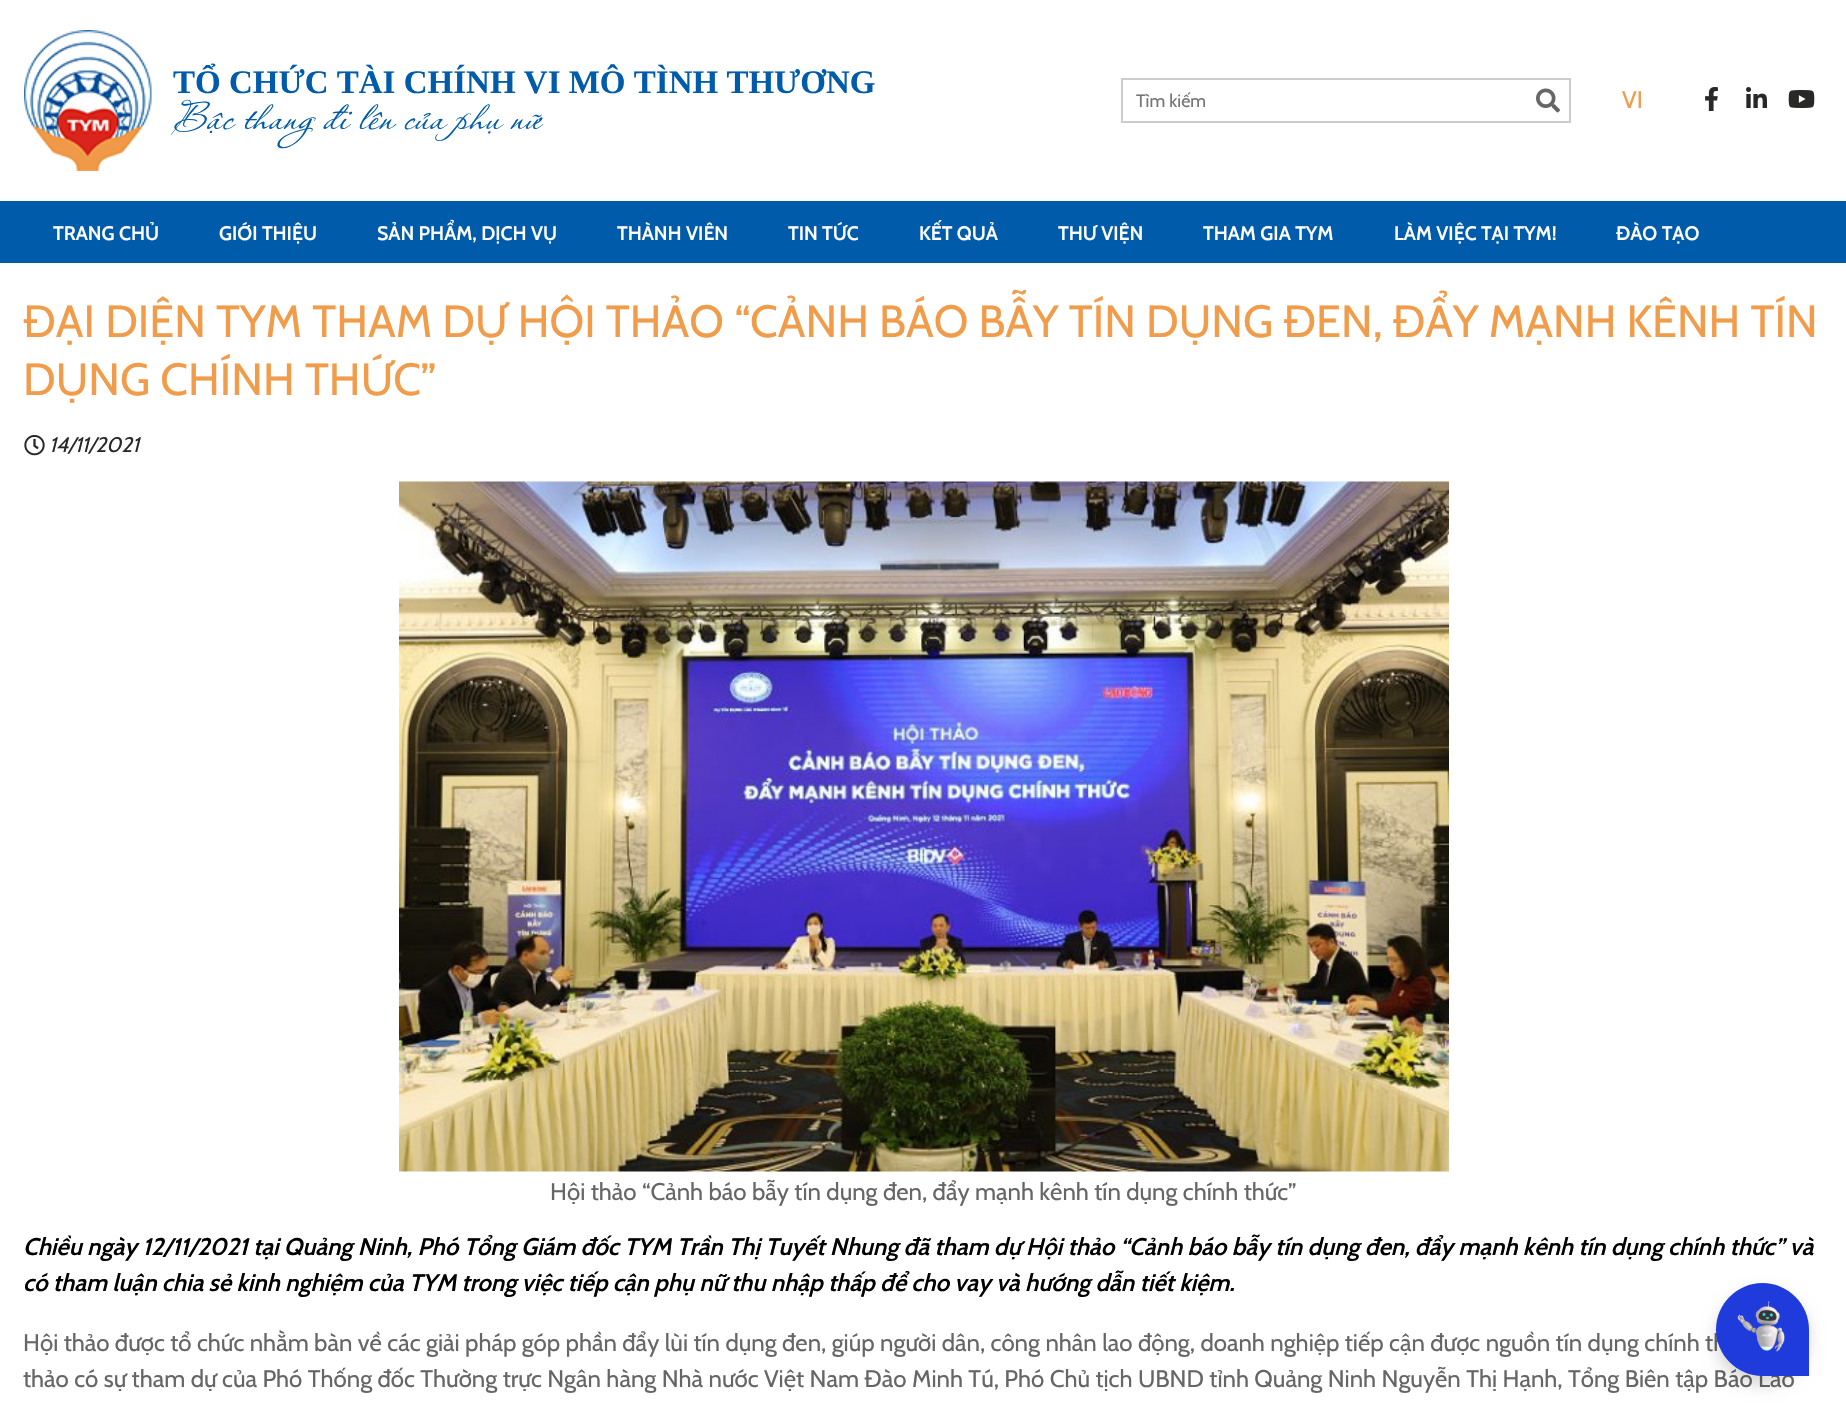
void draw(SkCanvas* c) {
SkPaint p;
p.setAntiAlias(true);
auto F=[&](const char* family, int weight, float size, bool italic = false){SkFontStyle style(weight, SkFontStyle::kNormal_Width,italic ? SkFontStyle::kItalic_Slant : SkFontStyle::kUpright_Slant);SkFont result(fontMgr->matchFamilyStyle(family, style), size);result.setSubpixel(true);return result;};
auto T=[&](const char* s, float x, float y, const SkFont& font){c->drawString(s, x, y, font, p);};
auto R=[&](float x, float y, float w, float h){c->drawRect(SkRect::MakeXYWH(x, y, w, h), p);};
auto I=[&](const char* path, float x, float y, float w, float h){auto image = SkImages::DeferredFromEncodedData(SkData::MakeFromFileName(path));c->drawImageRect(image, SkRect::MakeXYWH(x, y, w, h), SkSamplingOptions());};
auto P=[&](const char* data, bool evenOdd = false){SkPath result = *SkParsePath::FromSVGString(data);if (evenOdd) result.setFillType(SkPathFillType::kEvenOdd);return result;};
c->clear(0xffffffff);
I("1.png",24,30,128,141);
auto f1 = F("Liberation Serif",700,33);
p.setColor(0xff005baa);
T("TỔ CHỨC TÀI CHÍNH VI MÔ TÌNH THƯƠNG",173,93,f1);
auto f2 = F("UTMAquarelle",400,36,true);
T("Bậc thang đi lên của phụ nữ",173,129,f2);
p.setStroke(true);
p.setStrokeWidth(2);
p.setColor(0xffcccccc);
c->drawRect(SkRect::MakeXYWH(1122,79,448,43),p);
auto f3 = F("Cabin",400,18);
p.setStroke(false);
p.setColor(0xff757575);
T("Tìm kiếm",1136,107,f3);
I("2.png",1536,88,24,25);
auto f4 = F("Cabin",400,24);
p.setColor(0xfff09c4a);
T("VI",1622,108,f4);
I("3.png",1705,87,13,24);
I("4.png",1746,87,21,21);
I("5.png",1788,90,27,18);
p.setColor(0xff005baa);
R(0,201,1846,62);
auto f5 = F("Cabin",600,19.5);
p.setColor(0xffffffff);
T("TRANG CHỦ",53,240,f5);
T("GIỚI THIỆU",219,240,f5);
T("SẢN PHẨM, DỊCH VỤ",377,240,f5);
T("THÀNH VIÊN",617,240,f5);
T("TIN TỨC",788,240,f5);
T("KẾT QUẢ",919,240,f5);
T("THƯ VIỆN",1058,240,f5);
T("THAM GIA TYM",1203,240,f5);
T("LÀM VIỆC TẠI TYM!",1394,240,f5);
T("ĐÀO TẠO",1616,240,f5);
auto f6 = F("Cabin",400,45);
p.setColor(0xfff09c4a);
T("ĐẠI DIỆN TYM THAM DỰ HỘI THẢO “CẢNH BÁO BẪY TÍN DỤNG ĐEN, ĐẨY MẠNH KÊNH TÍN",23,337,f6);
T("DỤNG CHÍNH THỨC”",23,395,f6);
I("6.png",24,435,21,21);
auto f7 = F("Cabin",400,21,true);
p.setColor(0xff282827);
T("14/11/2021",49,452,f7);
I("7.png",399,481,1050,691);
p.setColor(0xff666666);
T("Hội thảo “Cảnh báo bẫy tín dụng đen, đẩy mạnh kênh tín dụng chính thức”",550,1200,f4);
auto f8 = F("Cabin",600,24,true);
p.setColor(0xff000000);
T("Chiều ngày 12/11/2021 tại Quảng Ninh, Phó Tổng Giám đốc TYM Trần Thị Tuyết Nhung đã tham dự Hội thảo “Cảnh báo bẫy tín dụng đen, đẩy mạnh kênh tín dụng chính thức” và",23,1255,f8);
T("có tham luận chia sẻ kinh nghiệm của TYM trong việc tiếp cận phụ nữ thu nhập thấp để cho vay và hướng dẫn tiết kiệm.",23,1291,f8);
p.setColor(0xff666666);
T("Hội thảo được tổ chức nhằm bàn về các giải pháp góp phần đẩy lùi tín dụng đen, giúp người dân, công nhân lao động, doanh nghiệp tiếp cận được nguồn tín dụng chính th",23,1351,f4);
T("thảo có sự tham dự của Phó Thống đốc Thường trực Ngân hàng Nhà nước Việt Nam Đào Minh Tú, Phó Chủ tịch UBND tỉnh Quảng Ninh Nguyễn Thị Hạnh, Tổng Biên tập Báo Lao",23,1387,f4);
p.setColor(0x29000000);
p.setMaskFilter(SkMaskFilter::MakeBlur(kNormal_SkBlurStyle, 7.5));
c->drawRoundRect(SkRect::MakeXYWH(1716,1292,93,93),46.5,46.5,p);
p.setMaskFilter(nullptr);
p.setColor(0xff203bdc);
c->drawPath(P("M1762.5 1283c25.5 0 46.5 21 46.5 46.5v46.5h-46.5c-25.5 0-46.5-21-46.5-46.5c0-25.5 21-46.5 46.5-46.5z"),p);
I("8.png",1737,1301,48,51);
}
